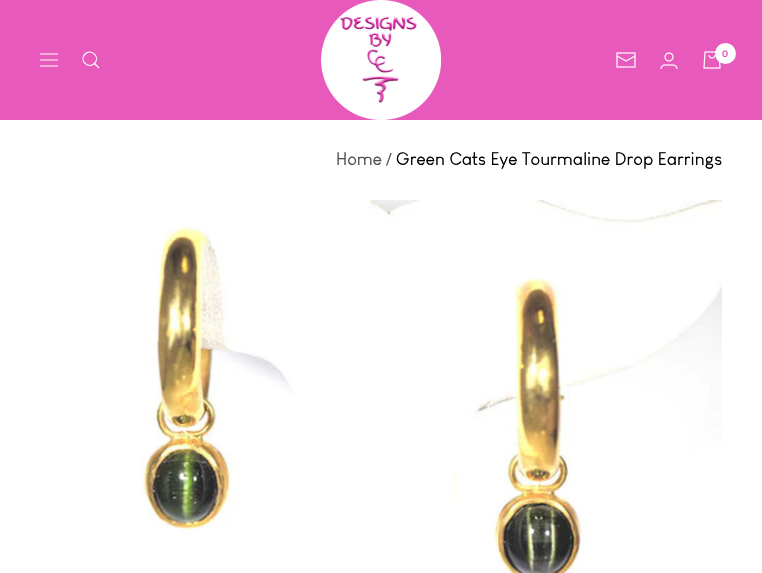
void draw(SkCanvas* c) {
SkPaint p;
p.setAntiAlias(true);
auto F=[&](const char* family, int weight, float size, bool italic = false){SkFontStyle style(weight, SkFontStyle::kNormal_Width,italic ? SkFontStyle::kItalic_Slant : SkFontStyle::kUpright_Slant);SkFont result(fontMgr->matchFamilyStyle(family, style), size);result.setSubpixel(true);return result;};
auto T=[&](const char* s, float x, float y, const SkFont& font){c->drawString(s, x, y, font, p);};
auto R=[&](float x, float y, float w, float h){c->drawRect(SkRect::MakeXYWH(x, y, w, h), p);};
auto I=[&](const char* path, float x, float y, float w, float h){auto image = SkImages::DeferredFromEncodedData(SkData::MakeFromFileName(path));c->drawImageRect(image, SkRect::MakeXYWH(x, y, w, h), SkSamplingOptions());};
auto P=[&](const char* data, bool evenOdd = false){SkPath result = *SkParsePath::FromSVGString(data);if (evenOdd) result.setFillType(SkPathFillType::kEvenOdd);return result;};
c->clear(0xffffffff);
p.setColor(0xffe759bb);
R(0,0,762,120);
p.setStroke(true);
p.setStrokeWidth(1.2);
p.setColor(0xffffffff);
c->drawPath(P("M40 54h18m-18 12h18zm0-6h18zm54.5 3.5c6-6.5-3-15.5-9.5-9.5c-6 6.5 3 15.5 9.5 9.5zm0 0l4.5 4.5"),p);
I("1.png",321,0,120,120);
I("2.png",616,52,20,16);
I("3.png",660,52,18,17);
I("4.png",703,51,18,18);
p.setStroke(false);
c->drawCircle(725.5,53.5,10.5,p);
auto f1 = F("Instrument Sans",600,9);
p.setColor(0xffe759bb);
T("0",722,57,f1);
auto f2 = F("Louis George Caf",400,18);
p.setColor(0xff4d4d4d);
T("Home",336,165,f2);
T("/",386,165,f2);
p.setColor(0xff000000);
T("Green Cats Eye Tourmaline Drop Earrings",396,165,f2);
I("5.png",40,200,682,373);
}
